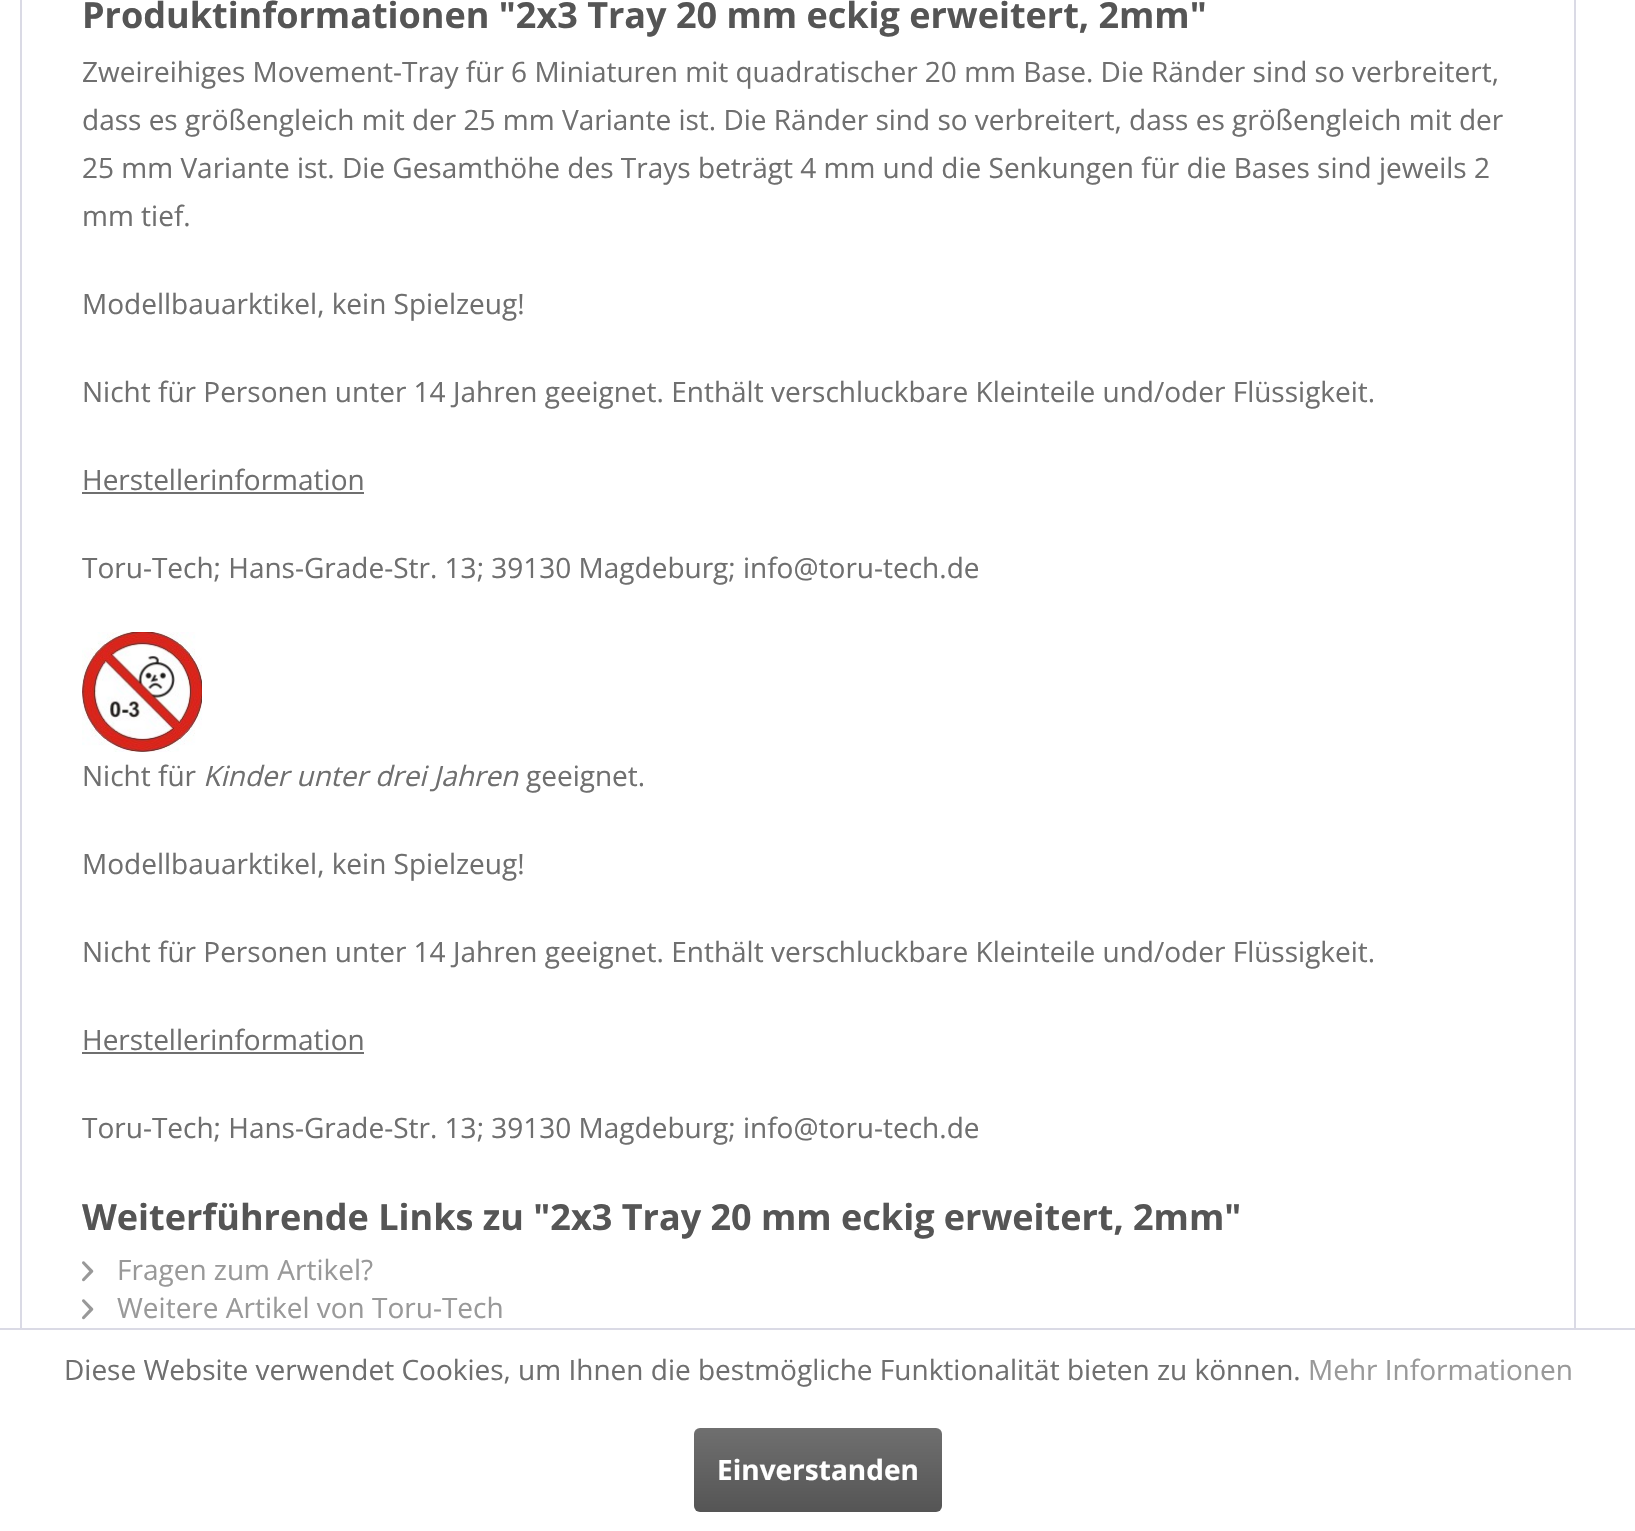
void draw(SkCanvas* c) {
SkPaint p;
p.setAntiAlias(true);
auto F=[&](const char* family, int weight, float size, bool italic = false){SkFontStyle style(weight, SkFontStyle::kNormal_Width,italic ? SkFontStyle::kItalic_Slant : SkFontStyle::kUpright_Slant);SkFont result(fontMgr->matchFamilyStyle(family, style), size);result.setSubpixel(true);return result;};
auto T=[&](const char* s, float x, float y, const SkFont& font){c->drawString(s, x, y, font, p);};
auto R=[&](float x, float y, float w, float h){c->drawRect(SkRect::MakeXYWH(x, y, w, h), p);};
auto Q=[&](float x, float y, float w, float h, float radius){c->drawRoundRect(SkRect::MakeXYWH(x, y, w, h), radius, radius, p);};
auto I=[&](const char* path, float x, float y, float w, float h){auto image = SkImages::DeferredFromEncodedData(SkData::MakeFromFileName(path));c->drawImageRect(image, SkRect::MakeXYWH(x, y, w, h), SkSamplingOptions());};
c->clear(0xffffffff);
p.setStroke(true);
p.setStrokeWidth(2);
p.setColor(0xffdadae5);
c->drawRect(SkRect::MakeXYWH(21,-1,1554,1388),p);
auto f1 = F("Open Sans",700,36);
p.setStroke(false);
p.setColor(0xff555555);
T("Produktinformationen \"2x3 Tray 20 mm eckig erweitert, 2mm\"",82,28,f1);
auto f2 = F("Open Sans",400,28);
p.setColor(0xff6f6f6f);
T("Zweireihiges Movement-Tray für 6 Miniaturen mit quadratischer 20 mm Base. Die Ränder sind so verbreitert,",82,82,f2);
T("dass es größengleich mit der 25 mm Variante ist. Die Ränder sind so verbreitert, dass es größengleich mit der",82,130,f2);
T("25 mm Variante ist. Die Gesamthöhe des Trays beträgt 4 mm und die Senkungen für die Bases sind jeweils 2",82,178,f2);
T("mm tief.",82,226,f2);
T("Modellbauarktikel, kein Spielzeug!",82,314,f2);
T("Nicht für Personen unter 14 Jahren geeignet. Enthält verschluckbare Kleinteile und/oder Flüssigkeit.",82,402,f2);
T("Herstellerinformation",82,490,f2);
R(82,492,282,2);
T("Toru-Tech; Hans-Grade-Str. 13; 39130 Magdeburg; info@toru-tech.de",82,578,f2);
I("1.png",82,632,120,120);
T("Nicht für",82,786,f2);
auto f3 = F("Open Sans",400,28,true);
T("Kinder unter drei Jahren",203,786,f3);
T("geeignet.",526,786,f2);
T("Modellbauarktikel, kein Spielzeug!",82,874,f2);
T("Nicht für Personen unter 14 Jahren geeignet. Enthält verschluckbare Kleinteile und/oder Flüssigkeit.",82,962,f2);
T("Herstellerinformation",82,1050,f2);
R(82,1052,282,2);
T("Toru-Tech; Hans-Grade-Str. 13; 39130 Magdeburg; info@toru-tech.de",82,1138,f2);
p.setColor(0xff555555);
T("Weiterführende Links zu \"2x3 Tray 20 mm eckig erweitert, 2mm\"",82,1230,f1);
I("2.png",82,1261,12,21);
p.setColor(0xff999999);
T("Fragen zum Artikel?",117,1280,f2);
I("2.png",82,1299,12,21);
T("Weitere Artikel von Toru-Tech",117,1318,f2);
p.setColor(0xffffffff);
R(20,1330,1556,58);
p.setColor(0xffdadae5);
R(0,1328,1635,2);
p.setColor(0xff6f6f6f);
T("Diese Website verwendet Cookies, um Ihnen die bestmögliche Funktionalität bieten zu können.",64,1380,f2);
p.setColor(0xff999999);
T("Mehr Informationen",1308,1380,f2);
{
const SkColor colors[] = {0xff6f6f6f,0xff555555};
const float stops[] = {0,1};
const SkPoint ends[] = {{818,1428}, {818,1512}};
p.setShader(SkGradientShader::MakeLinear(ends, colors, stops, 2, SkTileMode::kClamp));
p.setAlpha(255);
}
Q(694,1428,248,84,6);
auto f4 = F("Open Sans",700,28);
p.setShader(nullptr);
p.setColor(0xffffffff);
T("Einverstanden",717,1480,f4);
}
